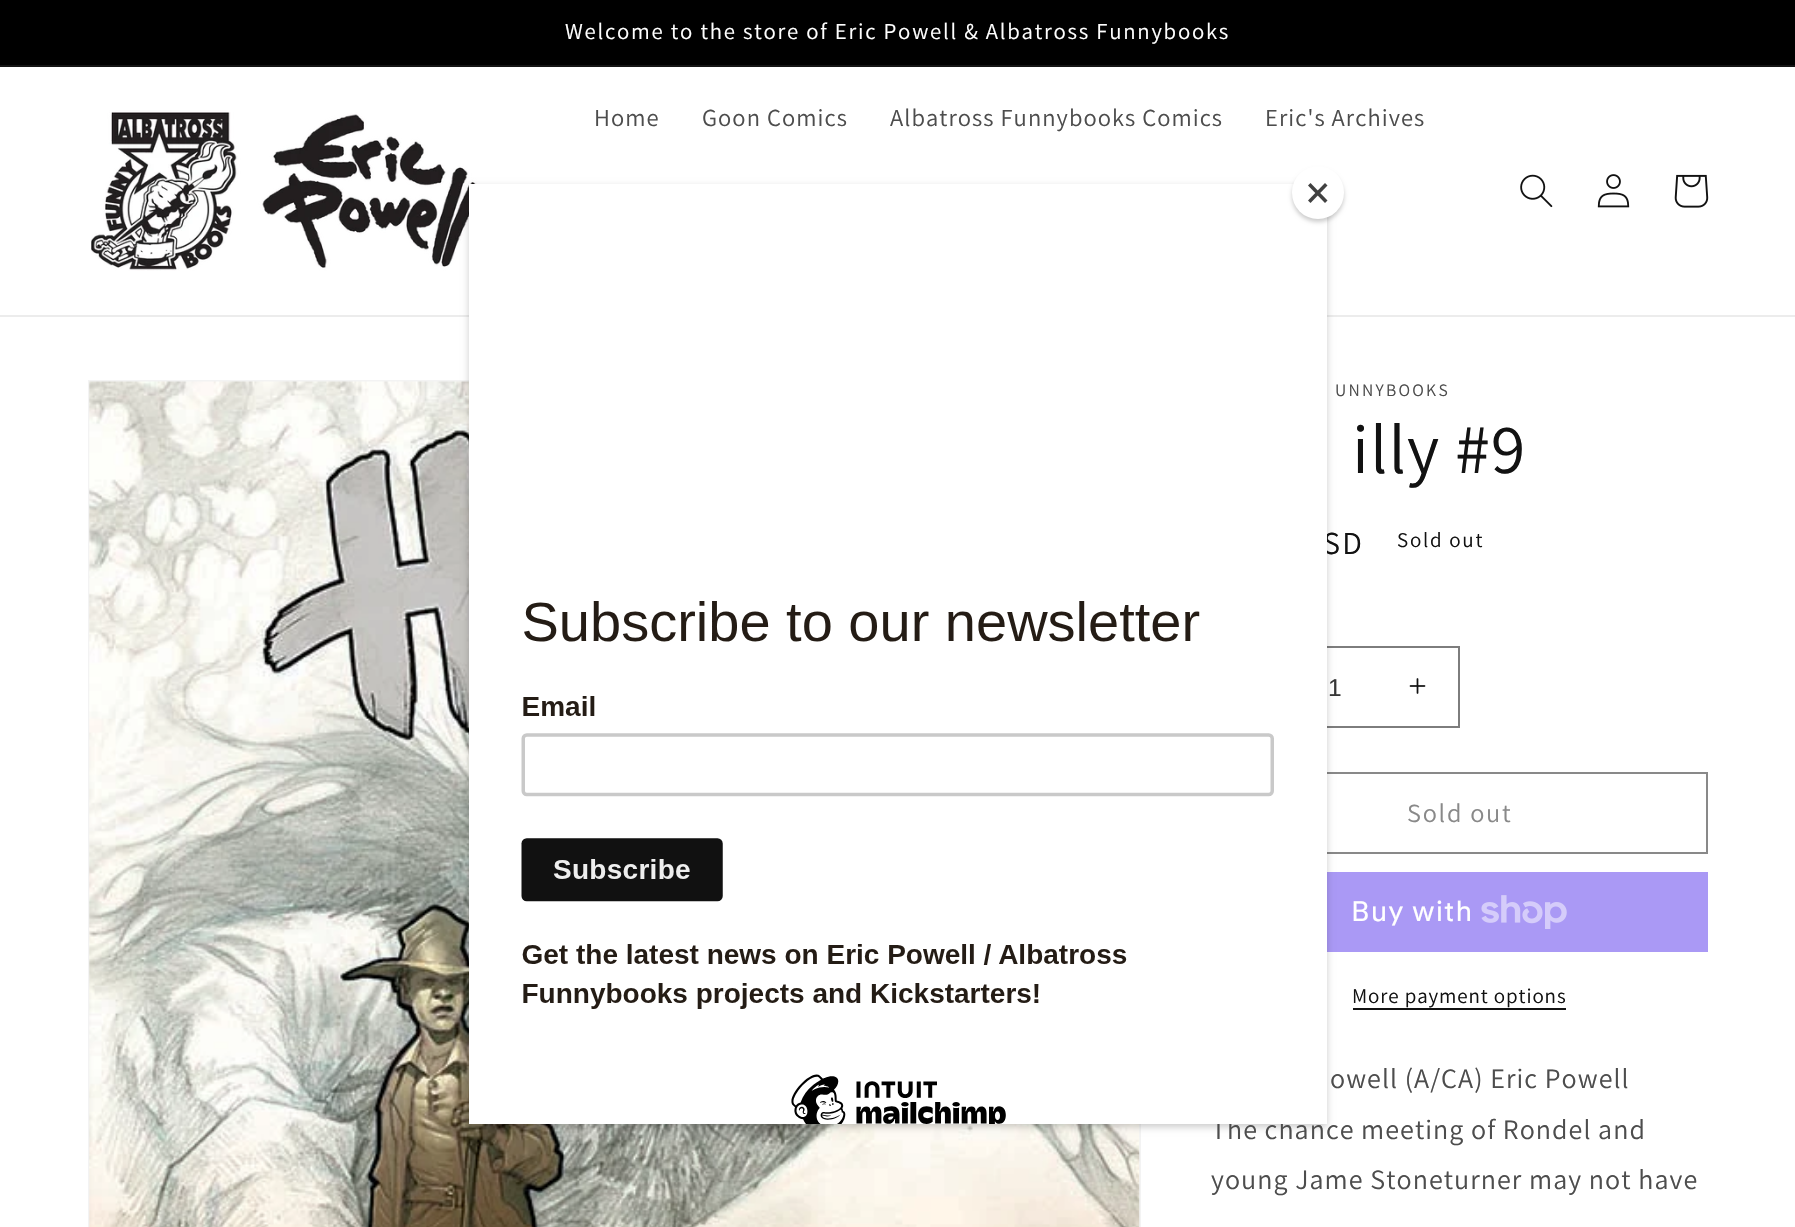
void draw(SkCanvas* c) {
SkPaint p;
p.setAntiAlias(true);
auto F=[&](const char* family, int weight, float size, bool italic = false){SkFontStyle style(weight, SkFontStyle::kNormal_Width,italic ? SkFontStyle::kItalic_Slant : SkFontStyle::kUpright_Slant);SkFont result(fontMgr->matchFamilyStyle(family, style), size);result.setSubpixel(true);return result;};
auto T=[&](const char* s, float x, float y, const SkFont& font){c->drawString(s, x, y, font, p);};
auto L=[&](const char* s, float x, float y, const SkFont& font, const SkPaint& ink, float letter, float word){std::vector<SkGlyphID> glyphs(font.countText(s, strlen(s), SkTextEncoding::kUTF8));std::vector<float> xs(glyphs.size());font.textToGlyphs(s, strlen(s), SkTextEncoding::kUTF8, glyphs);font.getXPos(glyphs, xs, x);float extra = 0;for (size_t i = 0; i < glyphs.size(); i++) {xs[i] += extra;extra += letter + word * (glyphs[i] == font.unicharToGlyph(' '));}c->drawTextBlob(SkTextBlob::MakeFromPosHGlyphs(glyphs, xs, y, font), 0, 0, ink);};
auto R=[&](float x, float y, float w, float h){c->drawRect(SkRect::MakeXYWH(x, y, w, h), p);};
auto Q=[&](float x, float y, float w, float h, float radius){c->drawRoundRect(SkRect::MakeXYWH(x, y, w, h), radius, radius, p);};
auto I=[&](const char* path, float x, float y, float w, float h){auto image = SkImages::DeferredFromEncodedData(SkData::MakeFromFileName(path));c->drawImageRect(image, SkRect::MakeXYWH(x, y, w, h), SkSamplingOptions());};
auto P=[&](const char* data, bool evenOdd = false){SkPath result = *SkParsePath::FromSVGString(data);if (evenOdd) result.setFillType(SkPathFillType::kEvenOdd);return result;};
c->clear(0xffffffff);
p.setColor(0xff000000);
R(0,0,1795,65);
p.setColor(0xff141414);
R(0,65,1795,2);
auto f1 = F("Assistant",400,22.75);
p.setColor(0xffffffff);
L("Welcome to the store of Eric Powell & Albatross Funnybooks",565,39,f1,p,1.75,0);
p.setColor(0xffececec);
R(0,315,1795,2);
I("1.png",91,110,389,161);
auto f2 = F("Assistant",400,24.5);
p.setColor(0xff4d4d4d);
L("Home",594,126,f2,p,1.05,0);
L("Goon Comics",702,126,f2,p,1.05,0);
L("Albatross Funnybooks Comics",890,126,f2,p,1.05,0);
L("Eric's Archives",1265,126,f2,p,1.05,0);
I("2.png",1520,174,33,34);
I("3.png",1597,174,33,34);
I("4.png",1674,174,35,34);
p.setStroke(true);
p.setStrokeWidth(2);
p.setColor(0xfff3f3f3);
c->drawRect(SkRect::MakeXYWH(89,381,1051,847),p);
I("6.png",89,381,1051,846);
I("7.png",1409,678,17,16);
p.setColor(0xff7d7d7d);
c->drawRect(SkRect::MakeXYWH(1212,647,247,80),p);
p.setColor(0xff898989);
c->drawRect(SkRect::MakeXYWH(1212,773,495,80),p);
p.setStroke(false);
p.setColor(0xffaa99f5);
R(1327,872,381,80);
p.setColor(0x33000000);
p.setMaskFilter(SkMaskFilter::MakeBlur(kNormal_SkBlurStyle, 3.5));
c->drawRect(SkRect::MakeXYWH(469,187,858,940),p);
p.setMaskFilter(nullptr);
auto f3 = F("Assistant",400,32);
p.setColor(0xff121212);
L("SD",1323,554,f3,p,2.25,0);
auto f4 = F("Assistant",400,28);
p.setColor(0xff4d4d4d);
L("The chance meeting of Rondel and",1211,1139,f4,p,1.05,0);
I("5.png",469,184,858,940);
p.setColor(0x33000000);
p.setMaskFilter(SkMaskFilter::MakeBlur(kNormal_SkBlurStyle, 2));
c->drawRoundRect(SkRect::MakeXYWH(1292,170,52,52),26,26,p);
p.setMaskFilter(nullptr);
p.setColor(0xffffffff);
Q(1292,166,52,53,26);
p.setColor(0xff414141);
c->drawPath(P("M1325 183l2.5 2.5l-17 17.5l-2.5-2.5z"),p);
c->drawPath(P("M1308 185.5l2.5-2.5l17 17.5l-2.5 2.5z"),p);
auto f5 = F("Assistant",400,17.5);
p.setColor(0xff4d4d4d);
L("UNNYBOOKS",1335,396,f5,p,2.25,0);
auto f6 = F("Assistant",400,70);
p.setColor(0xff121212);
L("illy #9",1352,473,f6,p,1.05,0);
auto f7 = F("Assistant",400,21);
L("Sold out",1397,547,f7,p,1.75,0);
auto f8 = F("Liberation Sans",400,24.5);
p.setColor(0xff363636);
T("1",1328,696,f8);
auto f9 = F("Assistant",400,26.25);
p.setColor(0xff898989);
L("Sold out",1407,822,f9,p,1.75,0);
auto f10 = F("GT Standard",400,28);
p.setColor(0xffffffff);
L("Buy with",1351,921,f10,p,1.05,0);
I("8.png",1481,895,86,34);
p.setColor(0xff121212);
L("More payment options",1352,1003,f7,p,.9,0);
R(1353,1008,213,2);
p.setColor(0xff4d4d4d);
L("owell (A/CA) Eric Powell",1330,1088,f4,p,1.05,0);
L("young Jame Stoneturner may not have",1211,1189,f4,p,1.05,0);
}
